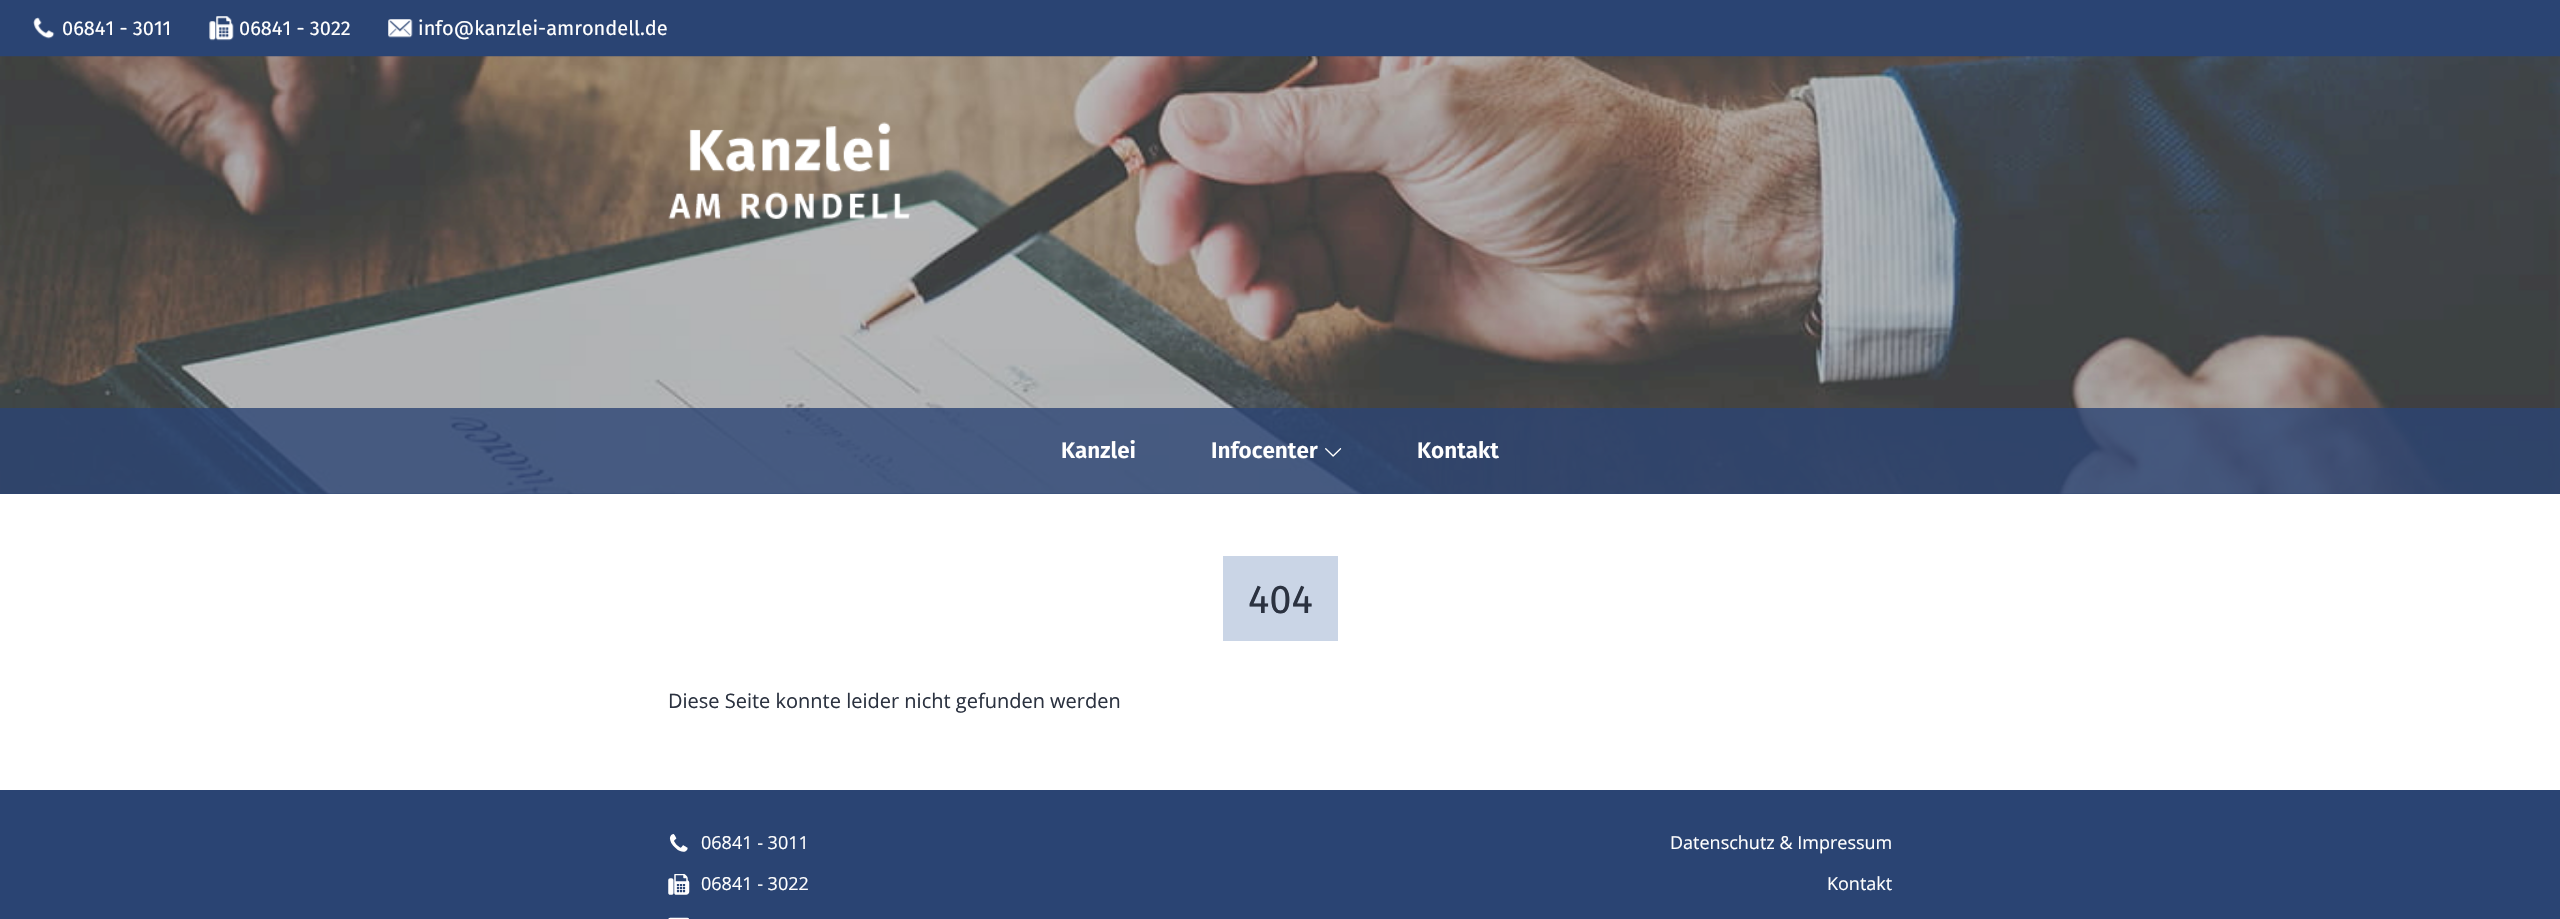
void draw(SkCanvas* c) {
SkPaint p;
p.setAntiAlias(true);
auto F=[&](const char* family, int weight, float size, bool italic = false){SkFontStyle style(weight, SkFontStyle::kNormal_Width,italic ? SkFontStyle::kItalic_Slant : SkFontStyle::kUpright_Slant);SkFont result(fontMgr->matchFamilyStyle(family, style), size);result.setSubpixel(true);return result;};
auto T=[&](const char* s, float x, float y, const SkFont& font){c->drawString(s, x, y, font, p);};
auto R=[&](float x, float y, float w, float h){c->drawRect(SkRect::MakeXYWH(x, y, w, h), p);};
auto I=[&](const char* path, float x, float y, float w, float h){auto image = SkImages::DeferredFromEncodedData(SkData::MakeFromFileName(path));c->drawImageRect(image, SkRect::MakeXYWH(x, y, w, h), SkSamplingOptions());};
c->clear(0xffffffff);
p.setColor(0xff2a4473);
R(0,0,2560,494);
I("1.png",33,17,22,22);
auto f1 = F("Fira Sans",400,20);
p.setColor(0xffffffff);
T("06841 - 3011",62,35,f1);
I("2.png",209,16,25,25);
T("06841 - 3022",239,35,f1);
I("3.png",388,19,25,19);
T("info@kanzlei-amrondell.de",418,35,f1);
I("4.png",0,56,2560,438);
I("5.png",668,122,242,97);
p.setColor(0xcc2a4473);
R(0,408,2560,86);
auto f2 = F("Fira Sans",600,22.5);
p.setColor(0xffffffff);
T("Kanzlei",1061,458,f2);
T("Infocenter",1211,458,f2);
I("6.png",1325,448,17,9);
T("Kontakt",1417,458,f2);
p.setColor(0xffcad5e6);
R(1223,556,115,85);
auto f3 = F("Fira Sans",400,40);
p.setColor(0xff2b3240);
T("404",1248,613,f3);
auto f4 = F("Open Sans",400,20);
T("Diese Seite konnte leider nicht gefunden werden",668,708,f4);
p.setColor(0xff2a4473);
R(0,790,2560,129);
I("7.png",669,834,19,18);
auto f5 = F("Open Sans",400,18);
p.setColor(0xffffffff);
T("06841 - 3011",701,849,f5);
I("8.png",668,874,22,21);
T("06841 - 3022",701,890,f5);
I("9.png",668,917,21,2);
T("Datenschutz & Impressum",1670,849,f5);
T("Kontakt",1827,890,f5);
}
